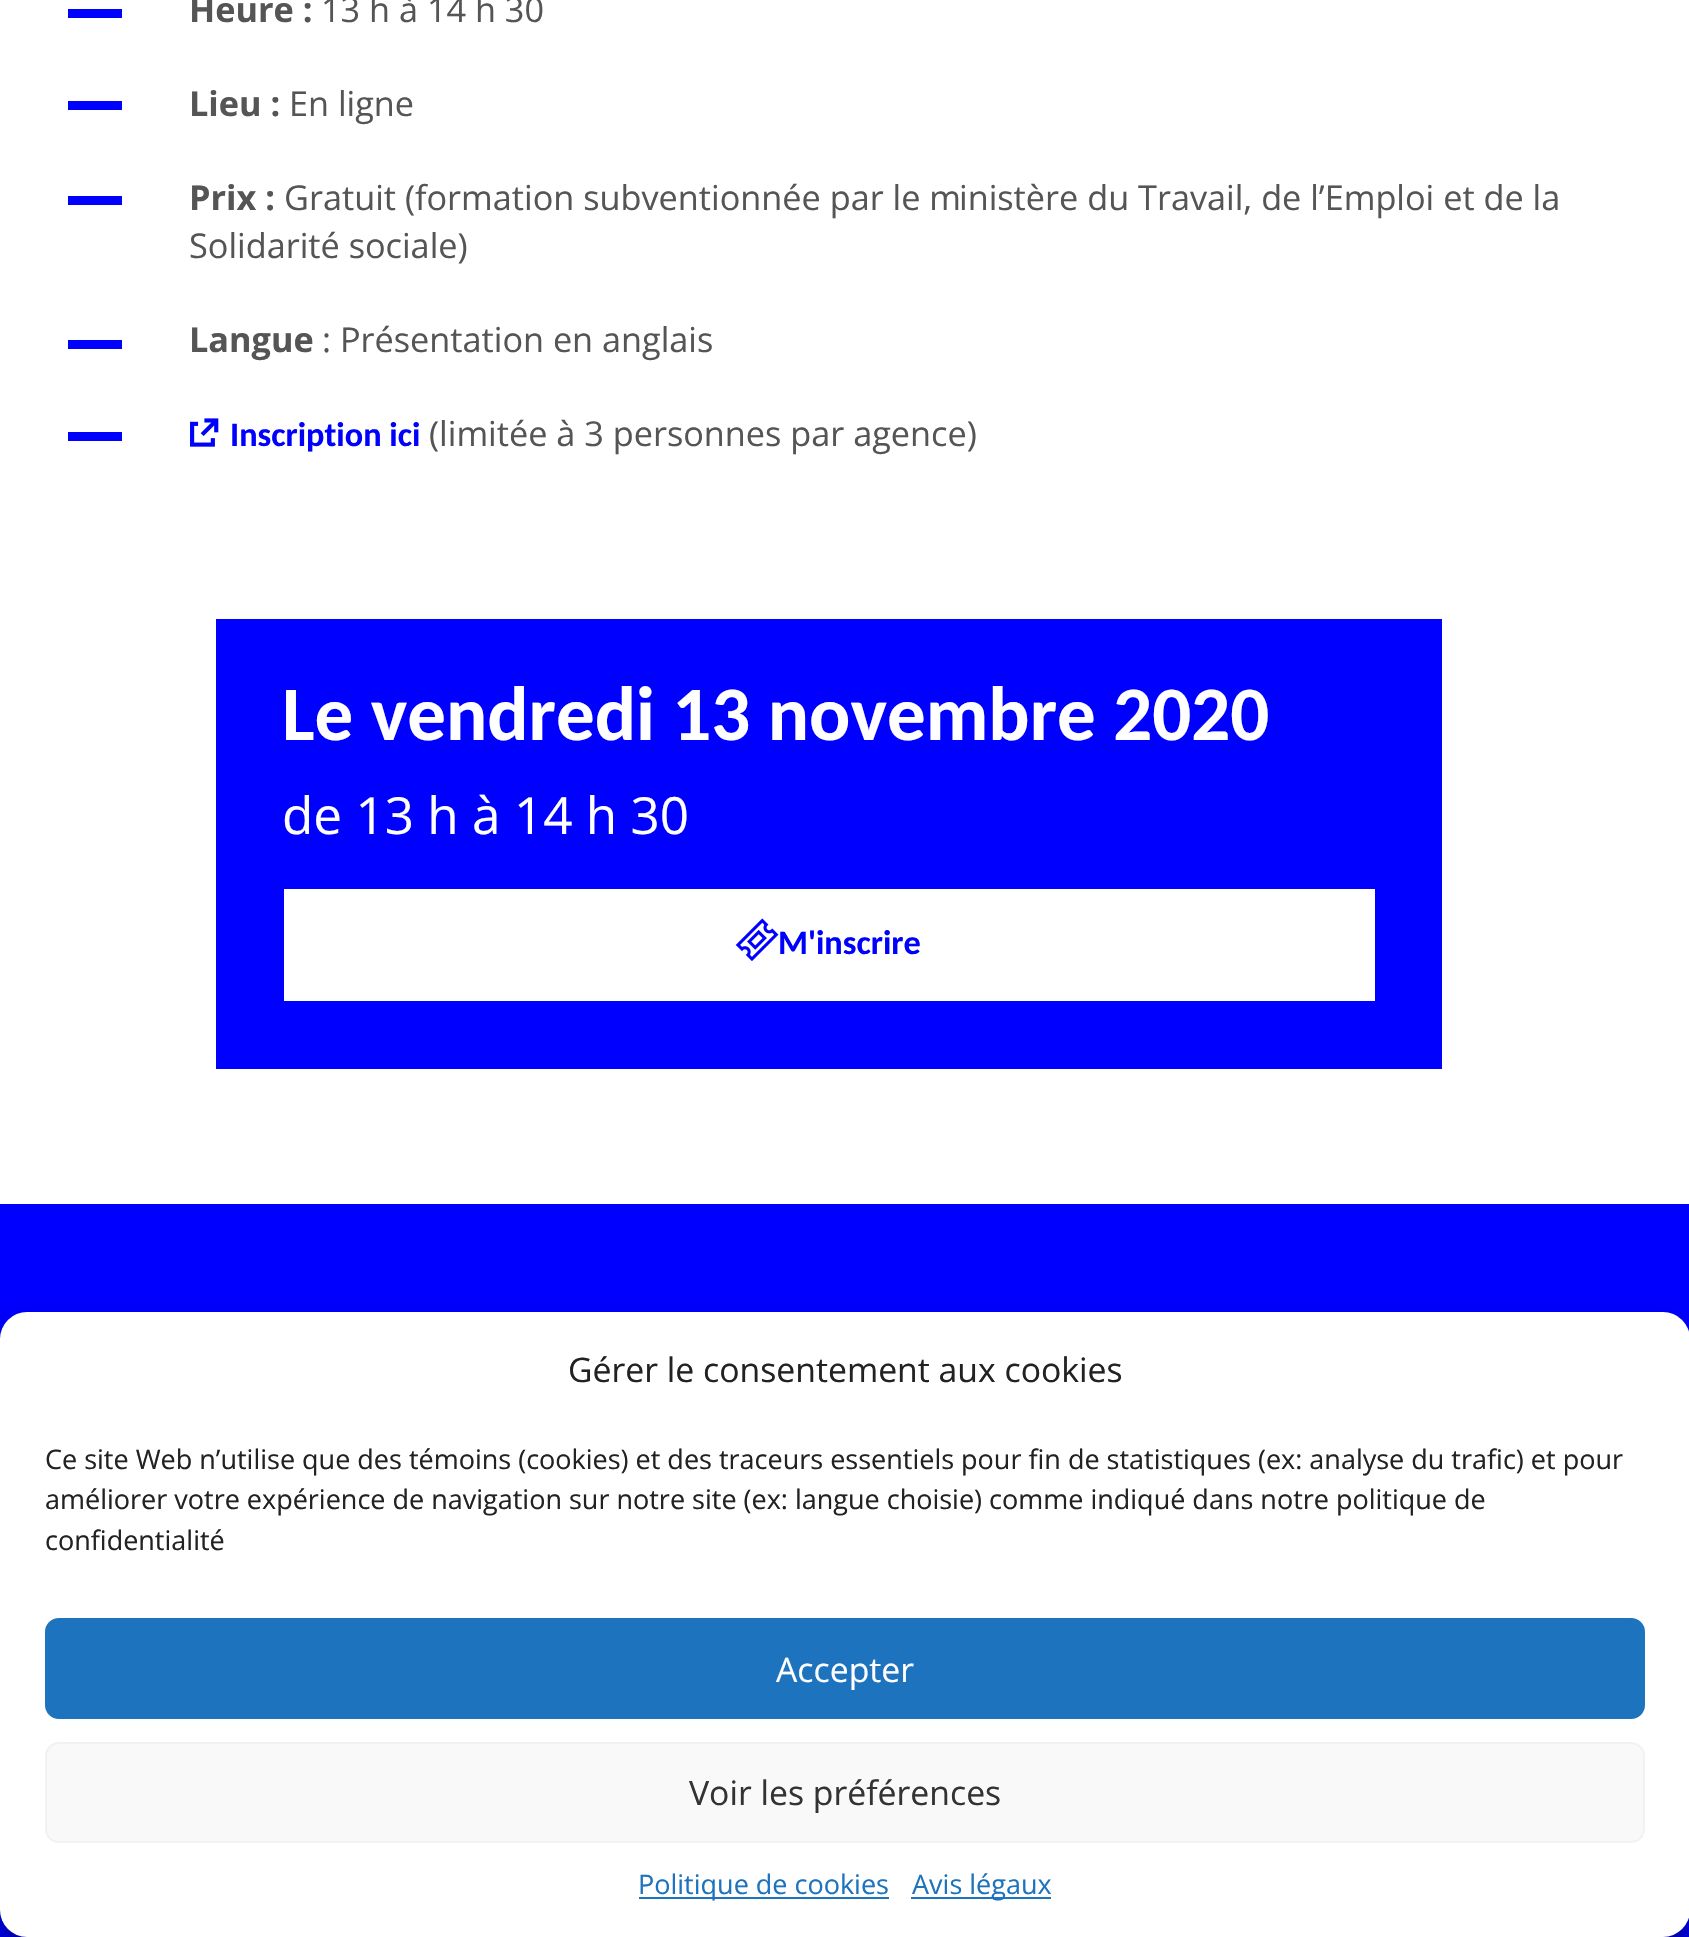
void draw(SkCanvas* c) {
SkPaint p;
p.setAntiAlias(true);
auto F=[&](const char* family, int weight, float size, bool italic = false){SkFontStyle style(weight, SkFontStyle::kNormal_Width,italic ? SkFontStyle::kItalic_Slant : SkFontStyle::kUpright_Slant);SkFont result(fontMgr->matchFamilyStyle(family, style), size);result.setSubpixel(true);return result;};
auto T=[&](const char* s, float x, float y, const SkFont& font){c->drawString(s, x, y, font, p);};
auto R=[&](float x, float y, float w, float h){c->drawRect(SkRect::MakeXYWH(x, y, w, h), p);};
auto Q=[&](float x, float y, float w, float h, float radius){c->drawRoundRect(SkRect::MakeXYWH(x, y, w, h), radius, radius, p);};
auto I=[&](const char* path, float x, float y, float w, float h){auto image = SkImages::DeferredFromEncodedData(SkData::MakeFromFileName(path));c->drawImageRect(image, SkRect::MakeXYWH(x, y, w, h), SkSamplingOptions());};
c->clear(0xffffffff);
p.setColor(0xff0000ff);
R(68,9,54,9);
auto f1 = F("Open Sans",700,34.25);
p.setColor(0xff555555);
T("Heure :",189,22,f1);
auto f2 = F("Open Sans",400,34.25);
T("13 h à 14 h 30",321,22,f2);
p.setColor(0xff0000ff);
R(68,101,54,9);
p.setColor(0xff555555);
T("Lieu :",189,116,f1);
T("En ligne",289,116,f2);
p.setColor(0xff0000ff);
R(68,196,54,9);
p.setColor(0xff555555);
T("Prix :",189,210,f1);
T("Gratuit (formation subventionnée par le m",284,210,f2);
T("inistère du Travail, de l’Emploi et de la",959,210,f2);
T("Solidarité sociale)",189,258,f2);
p.setColor(0xff0000ff);
R(68,340,54,9);
p.setColor(0xff555555);
T("Langue",189,352,f1);
T(": Présentation en anglais",322,352,f2);
p.setColor(0xff0000ff);
R(68,432,54,9);
I("1.png",190,418,29,29);
auto f3 = F("Carlito",700,34.25);
T("Inscription ici",230,446,f3);
p.setColor(0xff555555);
T("(limitée à 3 personnes par agence)",429,446,f2);
p.setColor(0xff0000ff);
R(216,619,1226,450);
auto f4 = F("Carlito",700,77);
p.setColor(0xffffffff);
T("Le vendredi 13 novembre 2020",282,740,f4);
auto f5 = F("Open Sans",400,51.25);
T("de 13 h à 14 h 30",282,834,f5);
R(284,889,1091,112);
I("2.png",735,918,44,43);
p.setColor(0xff0000ff);
T("M'inscrire",778,954,f3);
R(0,1204,1689,733);
p.setColor(0x3b000000);
p.setMaskFilter(SkMaskFilter::MakeBlur(kNormal_SkBlurStyle, 7));
c->drawRoundRect(SkRect::MakeXYWH(0,1325,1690,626),27,27,p);
p.setMaskFilter(nullptr);
p.setColor(0x30000000);
p.setMaskFilter(SkMaskFilter::MakeBlur(kNormal_SkBlurStyle, 22.5));
c->drawRoundRect(SkRect::MakeXYWH(0,1334,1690,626),27,27,p);
p.setMaskFilter(nullptr);
p.setColor(0xffffffff);
Q(0,1312,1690,625,27);
auto f6 = F("Open Sans",400,33.75);
p.setColor(0xff222222);
T("Gérer le consentement aux cookies",568,1382,f6);
auto f7 = F("Open Sans",400,27);
T("Ce site Web n’utilise que des témoins (cookies) et des traceurs essentiels pour fin de statistiques (ex: analyse du trafic) et pour",45,1469,f7);
T("améliorer votre expérience de navigation sur notre site (ex: langue choisie) comme indiqué dans notre politique de",45,1509,f7);
T("confidentialité",45,1550,f7);
p.setColor(0xff1e73be);
c->drawRoundRect(SkRect::MakeXYWH(46,1619,1598,99),13,13,p);
p.setStroke(true);
p.setStrokeWidth(2);
c->drawRoundRect(SkRect::MakeXYWH(46,1619,1598,99),13,13,p);
p.setStroke(false);
p.setColor(0xffffffff);
T("Accepter",776,1682,f6);
p.setColor(0xfff9f9f9);
c->drawRoundRect(SkRect::MakeXYWH(46,1743,1598,99),13,13,p);
p.setStroke(true);
p.setColor(0xfff2f2f2);
c->drawRoundRect(SkRect::MakeXYWH(46,1743,1598,99),13,13,p);
p.setStroke(false);
p.setColor(0xff333333);
T("Voir les préférences",689,1805,f6);
p.setColor(0xff1e73be);
R(639,1897,250,2);
T("Politique de cookies",638,1894,f7);
R(911,1897,140,2);
T("Avis légaux",912,1894,f7);
}
